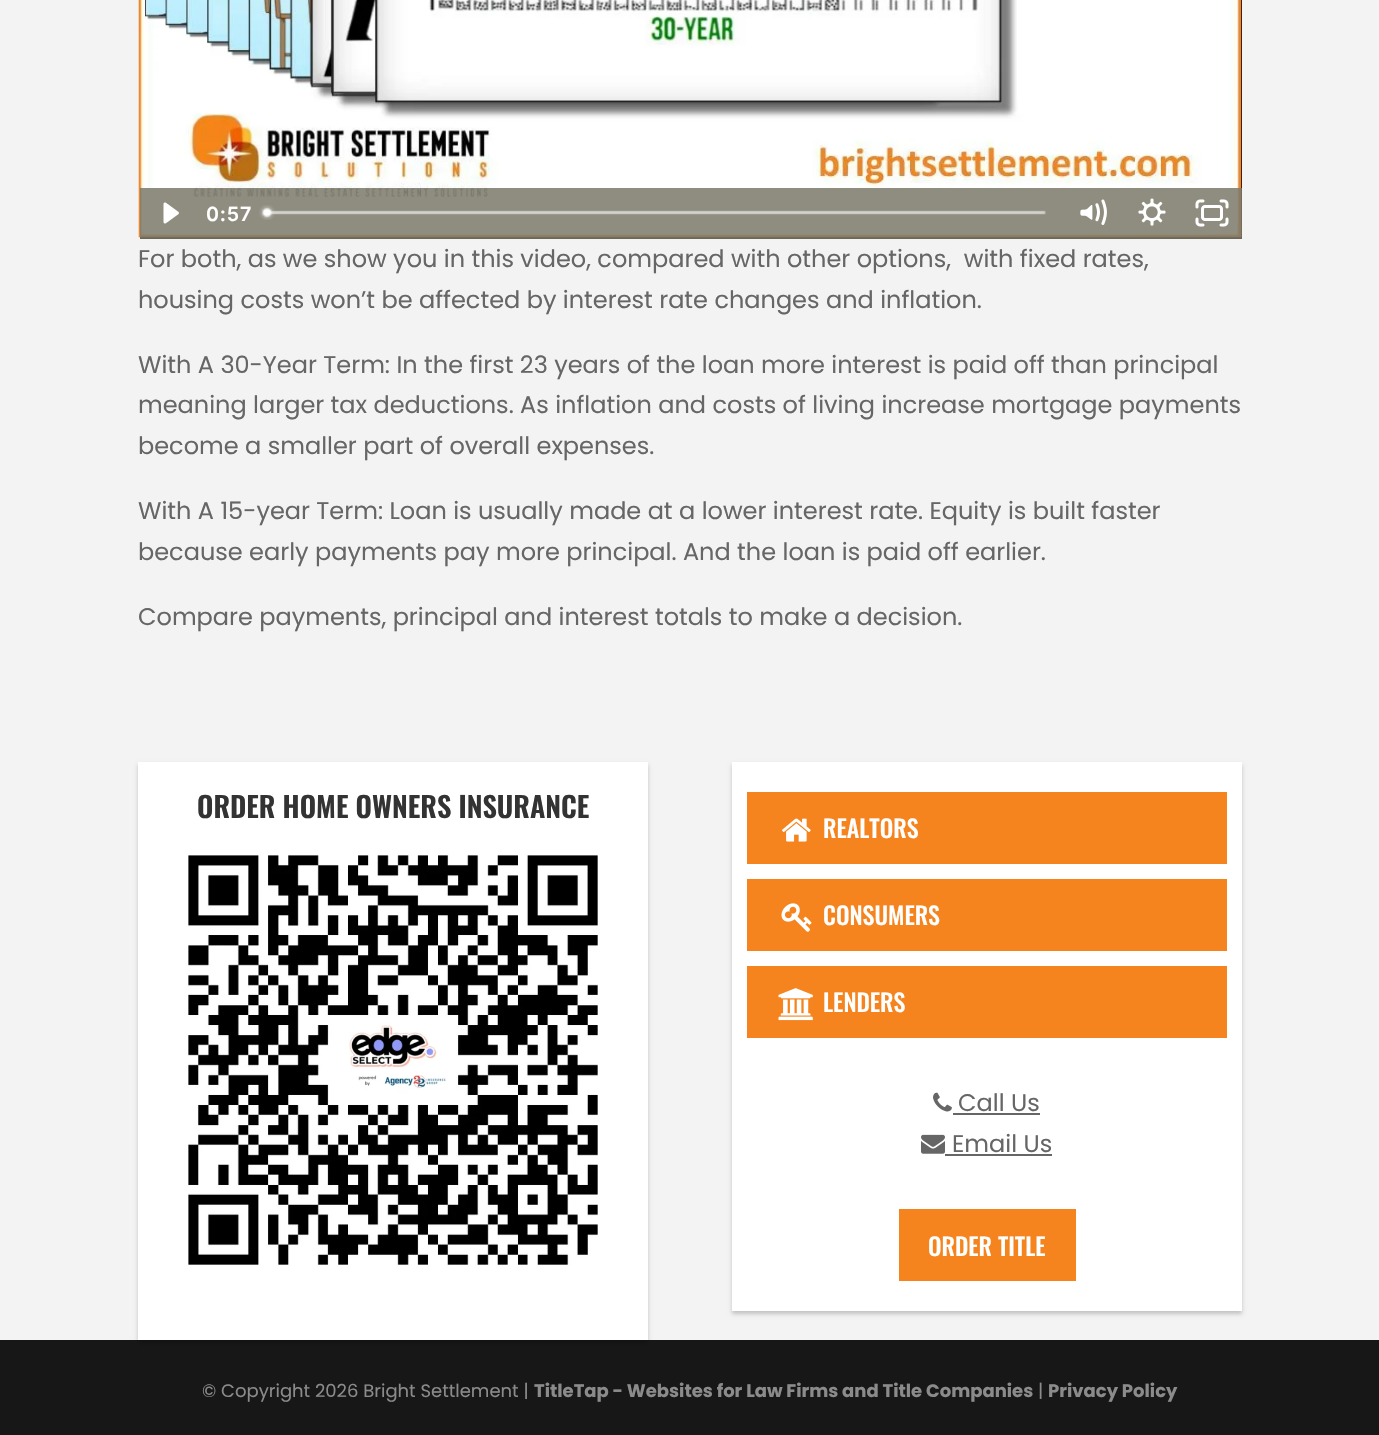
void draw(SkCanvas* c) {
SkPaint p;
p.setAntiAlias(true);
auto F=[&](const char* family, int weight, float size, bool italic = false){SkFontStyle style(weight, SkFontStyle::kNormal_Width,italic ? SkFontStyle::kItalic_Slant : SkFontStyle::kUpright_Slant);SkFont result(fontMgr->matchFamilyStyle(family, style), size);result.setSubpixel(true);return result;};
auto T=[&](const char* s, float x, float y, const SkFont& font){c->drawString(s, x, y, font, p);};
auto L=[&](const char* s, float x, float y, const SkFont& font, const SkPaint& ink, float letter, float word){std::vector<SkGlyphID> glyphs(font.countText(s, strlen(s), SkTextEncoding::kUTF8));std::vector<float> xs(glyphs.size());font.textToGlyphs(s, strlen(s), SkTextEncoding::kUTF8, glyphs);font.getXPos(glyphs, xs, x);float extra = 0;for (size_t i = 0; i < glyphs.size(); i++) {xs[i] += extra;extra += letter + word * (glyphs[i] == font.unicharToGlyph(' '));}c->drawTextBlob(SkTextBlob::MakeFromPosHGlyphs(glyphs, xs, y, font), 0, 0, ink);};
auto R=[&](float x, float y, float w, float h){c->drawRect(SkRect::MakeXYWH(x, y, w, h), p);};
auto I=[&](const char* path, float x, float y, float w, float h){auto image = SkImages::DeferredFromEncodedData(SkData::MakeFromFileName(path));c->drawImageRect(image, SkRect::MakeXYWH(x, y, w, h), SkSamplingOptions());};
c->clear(0xfff3f3f3);
I("1.png",138,0,2,238);
p.setColor(0xff000000);
R(140,0,1102,239);
I("2.png",138,0,1104,238);
p.setColor(0xd97b796a);
R(140,188,1102,51);
I("3.png",163,202,16,22);
auto f1 = F("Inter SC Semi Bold",600,19.5);
p.setColor(0xffffffff);
L("0:57",206,221,f1,p,1,0);
I("4.png",259,205,787,15);
I("5.png",1080,199,27,26);
I("6.png",1138,198,28,28);
I("7.png",1195,199,34,28);
auto f2 = F("Poppins",400,24);
p.setColor(0xff666666);
T("For both, as we show you in this video, compared with other options,  with fixed rates,",138,267,f2);
T("housing costs won’t be affected by interest rate changes and inflation.",138,308,f2);
T("With A 30-Year Term: In the first 23 years of the loan more interest is paid off than principal",138,373,f2);
T("meaning larger tax deductions. As inflation and costs of living increase mortgage payments",138,413,f2);
T("become a smaller part of overall expenses.",138,454,f2);
T("With A 15-year Term: Loan is usually made at a lower interest rate. Equity is built faster",138,519,f2);
T("because early payments pay more principal. And the loan is paid off earlier.",138,560,f2);
T("Compare payments, principal and interest totals to make a decision.",138,625,f2);
p.setColor(0xff171717);
R(0,1340,1379,95);
p.setColor(0x33000000);
p.setMaskFilter(SkMaskFilter::MakeBlur(kNormal_SkBlurStyle, 2));
c->drawRect(SkRect::MakeXYWH(138,765,510,578),p);
p.setMaskFilter(nullptr);
p.setColor(0xffffffff);
R(138,762,510,578);
auto f3 = F("Oswald",600,28.5);
p.setColor(0xff333333);
T("ORDER HOME OWNERS INSURANCE",197,818,f3);
I("8.png",188,854,410,411);
p.setColor(0x33000000);
p.setMaskFilter(SkMaskFilter::MakeBlur(kNormal_SkBlurStyle, 2));
c->drawRect(SkRect::MakeXYWH(732,765,510,549),p);
p.setMaskFilter(nullptr);
p.setColor(0xffffffff);
R(732,762,510,549);
p.setColor(0xfff5841e);
R(747,792,480,72);
I("9.png",782,818,29,24);
auto f4 = F("Oswald",500,24);
p.setColor(0xffffffff);
T("REALTORS",823,838,f4);
p.setColor(0xfff5841e);
R(747,879,480,72);
I("10.png",781,903,31,29);
p.setColor(0xffffffff);
T("CONSUMERS",823,925,f4);
p.setColor(0xfff5841e);
R(747,966,480,72);
I("11.png",778,988,35,33);
p.setColor(0xffffffff);
T("LENDERS",823,1012,f4);
I("12.png",933,1092,19,20);
p.setColor(0xff666666);
T("Call Us",958,1111,f2);
R(953,1113,87,2);
I("13.png",921,1134,24,20);
T("Email Us",952,1152,f2);
R(945,1154,107,2);
p.setColor(0xfff5841e);
R(899,1209,177,72);
p.setColor(0xffffffff);
T("ORDER TITLE",928,1256,f4);
auto f5 = F("Poppins",400,18);
p.setColor(0xff8b8b8b);
T("© Copyright 2026 Bright Settlement |",202,1397,f5);
auto f6 = F("Poppins",700,18);
T("TitleTap - Websites for Law Firms and Title Companies",534,1397,f6);
T("|",1038,1397,f5);
T("Privacy Policy",1048,1397,f6);
}
